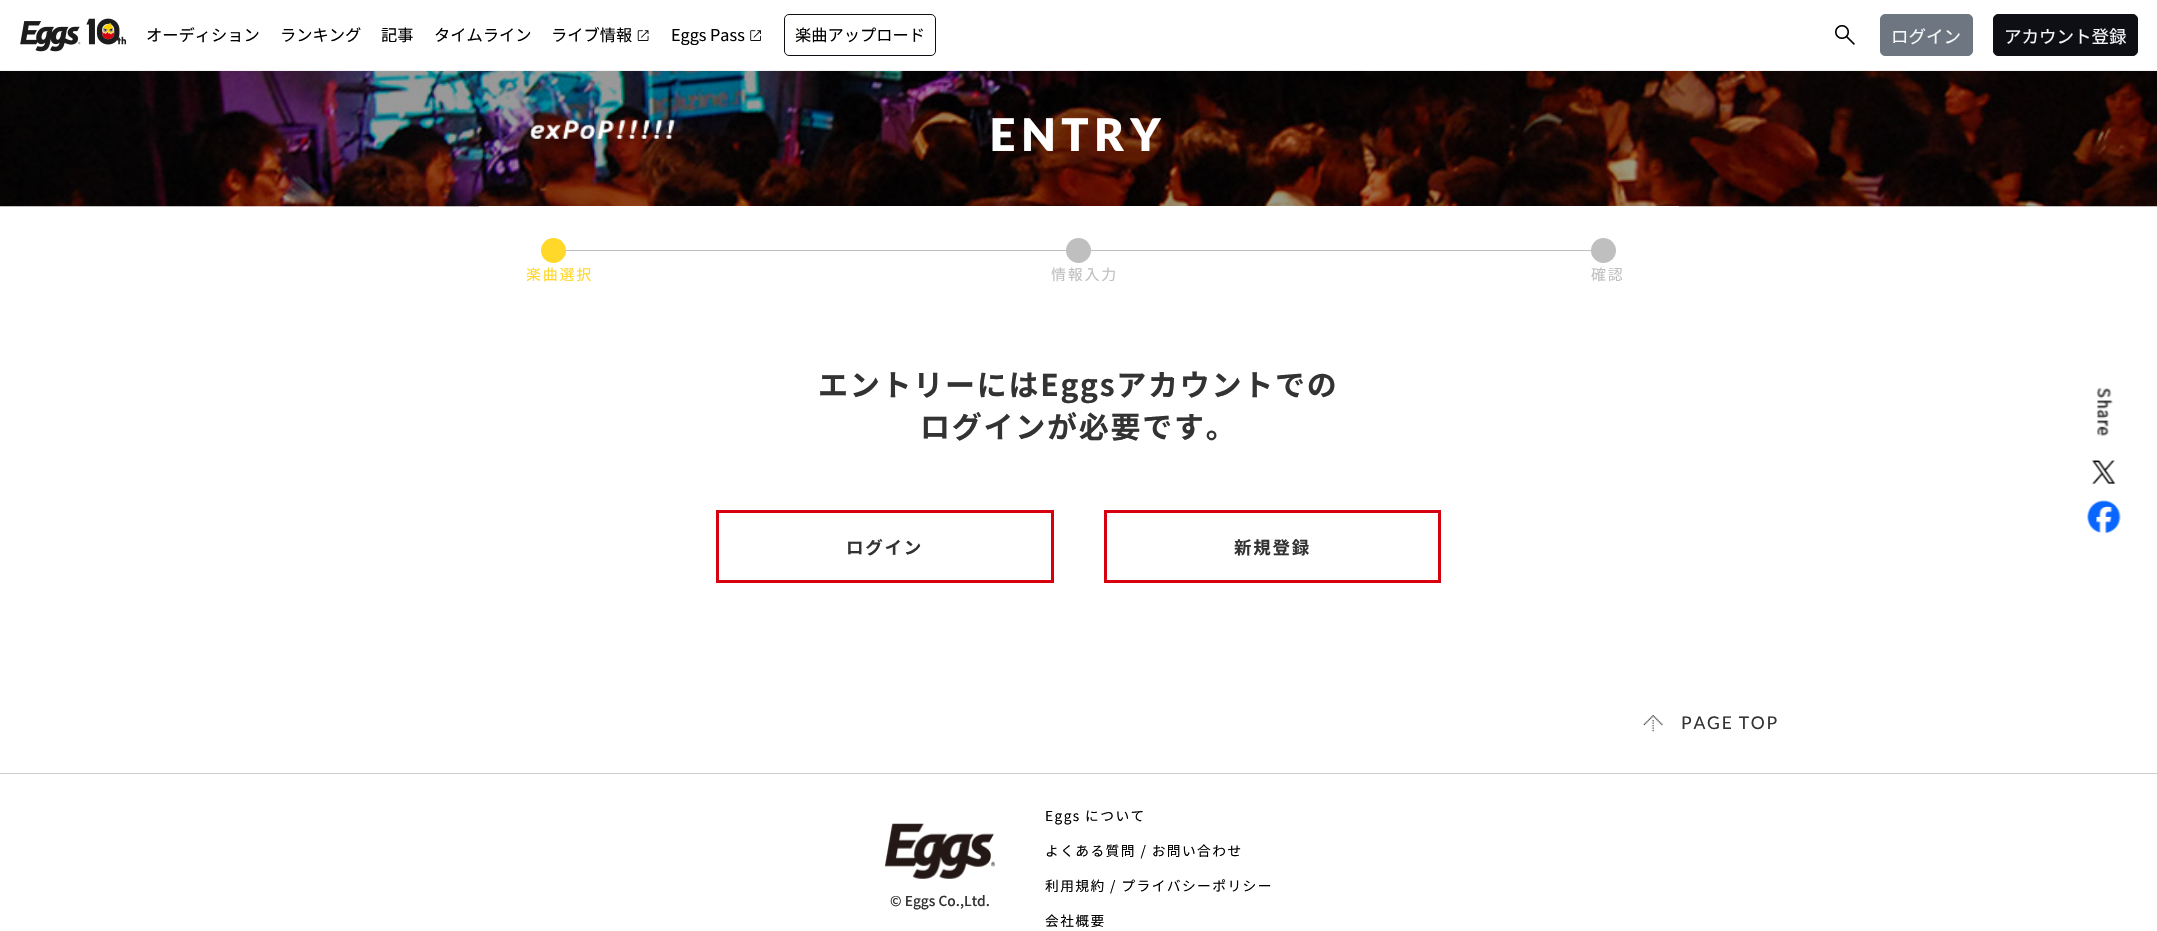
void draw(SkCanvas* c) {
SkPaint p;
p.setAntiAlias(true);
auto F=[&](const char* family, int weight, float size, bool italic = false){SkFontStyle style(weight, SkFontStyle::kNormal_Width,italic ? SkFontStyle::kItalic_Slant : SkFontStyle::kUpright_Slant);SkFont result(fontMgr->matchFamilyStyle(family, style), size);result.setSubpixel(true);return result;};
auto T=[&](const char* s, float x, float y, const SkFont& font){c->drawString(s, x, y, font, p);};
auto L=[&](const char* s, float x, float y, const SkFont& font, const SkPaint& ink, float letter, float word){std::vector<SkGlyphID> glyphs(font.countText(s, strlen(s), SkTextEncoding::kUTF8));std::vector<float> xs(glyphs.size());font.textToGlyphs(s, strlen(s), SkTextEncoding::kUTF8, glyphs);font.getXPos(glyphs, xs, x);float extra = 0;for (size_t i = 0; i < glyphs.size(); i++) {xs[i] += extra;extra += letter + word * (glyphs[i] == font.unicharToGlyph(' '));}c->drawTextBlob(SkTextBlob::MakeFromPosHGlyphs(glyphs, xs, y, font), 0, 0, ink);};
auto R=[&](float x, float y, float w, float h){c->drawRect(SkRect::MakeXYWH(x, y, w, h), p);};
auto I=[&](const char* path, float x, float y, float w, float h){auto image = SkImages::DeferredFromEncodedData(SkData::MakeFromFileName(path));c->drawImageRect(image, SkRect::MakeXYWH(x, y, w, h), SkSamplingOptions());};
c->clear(0xffffffff);
p.setColor(0xfff2f2f2);
R(0,70,2157,1);
I("1.png",20,18,106,34);
auto f1 = F("Noto Sans JP",400,16.25);
p.setColor(0xff000000);
T("オーディション",146,41,f1);
T("ランキング",280,41,f1);
T("記事",381,41,f1);
T("タイムライン",434,41,f1);
T("ライブ情報",551,41,f1);
I("2.png",637,30,12,11);
T("Eggs Pass",671,41,f1);
I("3.png",750,30,11,11);
p.setStroke(true);
p.setStrokeWidth(1);
p.setColor(0xff0d0f14);
c->drawRoundRect(SkRect::MakeXYWH(784.5,14.5,151,41),4.5,4.5,p);
p.setStroke(false);
p.setColor(0xff000000);
T("楽曲アップロード",795,41,f1);
I("4.png",1835,25,20,20);
p.setColor(0xff6e7781);
c->drawRoundRect(SkRect::MakeXYWH(1880.5,14.5,92,41),4.5,4.5,p);
p.setStroke(true);
c->drawRoundRect(SkRect::MakeXYWH(1880.5,14.5,92,41),4.5,4.5,p);
auto f2 = F("Noto Sans JP",400,17.5);
p.setStroke(false);
p.setColor(0xfff6f8fa);
T("ログイン",1891,43,f2);
p.setColor(0xff0d0f14);
c->drawRoundRect(SkRect::MakeXYWH(1993.5,14.5,144,41),4.5,4.5,p);
p.setStroke(true);
c->drawRoundRect(SkRect::MakeXYWH(1993.5,14.5,144,41),4.5,4.5,p);
p.setStroke(false);
p.setColor(0xfff6f8fa);
T("アカウント登録",2004,43,f2);
I("5.png",0,71,2157,136);
I("6.png",530,119,146,20);
auto f3 = F("Lato",900,45);
p.setColor(0xffffffff);
L("ENTRY",990,151,f3,p,6,0);
R(479,206,1200,1);
p.setColor(0xffbfbfbf);
R(541,250,1075,1);
p.setColor(0xffffd829);
c->drawCircle(553.5,250.5,12.5,p);
auto f4 = F("Noto Sans JP",400,15);
L("楽曲選択",526,280,f4,p,1.75,0);
p.setColor(0xffbfbfbf);
c->drawCircle(1078.5,250.5,12.5,p);
L("情報入力",1051,280,f4,p,1.75,0);
c->drawCircle(1603.5,250.5,12.5,p);
L("確認",1591,280,f4,p,1.75,0);
auto f5 = F("Noto Sans JP",700,30);
p.setColor(0xff333333);
L("エントリーにはEggsアカウントでの",818,396,f5,p,1.75,0);
L("ログインが必要です。",920,438,f5,p,1.75,0);
p.setStroke(true);
p.setStrokeWidth(3);
p.setColor(0xffd6000f);
c->drawRect(SkRect::MakeXYWH(717.5,511.5,335,70),p);
auto f6 = F("Noto Sans JP",700,17.5);
p.setStroke(false);
p.setColor(0xff333333);
L("ログイン",846,554,f6,p,1.75,0);
p.setStroke(true);
p.setColor(0xffd6000f);
c->drawRect(SkRect::MakeXYWH(1105.5,511.5,334,70),p);
p.setStroke(false);
p.setColor(0xff333333);
L("新規登録",1234,554,f6,p,1.75,0);
I("7.png",2096,388,17,48);
I("8.png",2091,460,25,24);
I("9.png",2087,500,34,34);
I("10.png",1643,715,20,17);
auto f7 = F("Lato",400,17.5);
L("PAGE TOP",1681,729,f7,p,1.75,0);
p.setColor(0xffcccccc);
R(0,773,2157,1);
I("11.png",885,823,110,56);
auto f8 = F("Noto Sans JP",500,13.75);
p.setColor(0xff333333);
T("© Eggs Co.,Ltd.",890,906,f8);
auto f9 = F("Noto Sans JP",400,13.75);
p.setColor(0xff000000);
L("Eggs について",1045,821,f9,p,1.4,0);
L("よくある質問 / お問い合わせ",1045,856,f9,p,1.4,0);
L("利用規約 / プライバシーポリシー",1045,891,f9,p,1.4,0);
L("会社概要",1045,926,f9,p,1.4,0);
}
